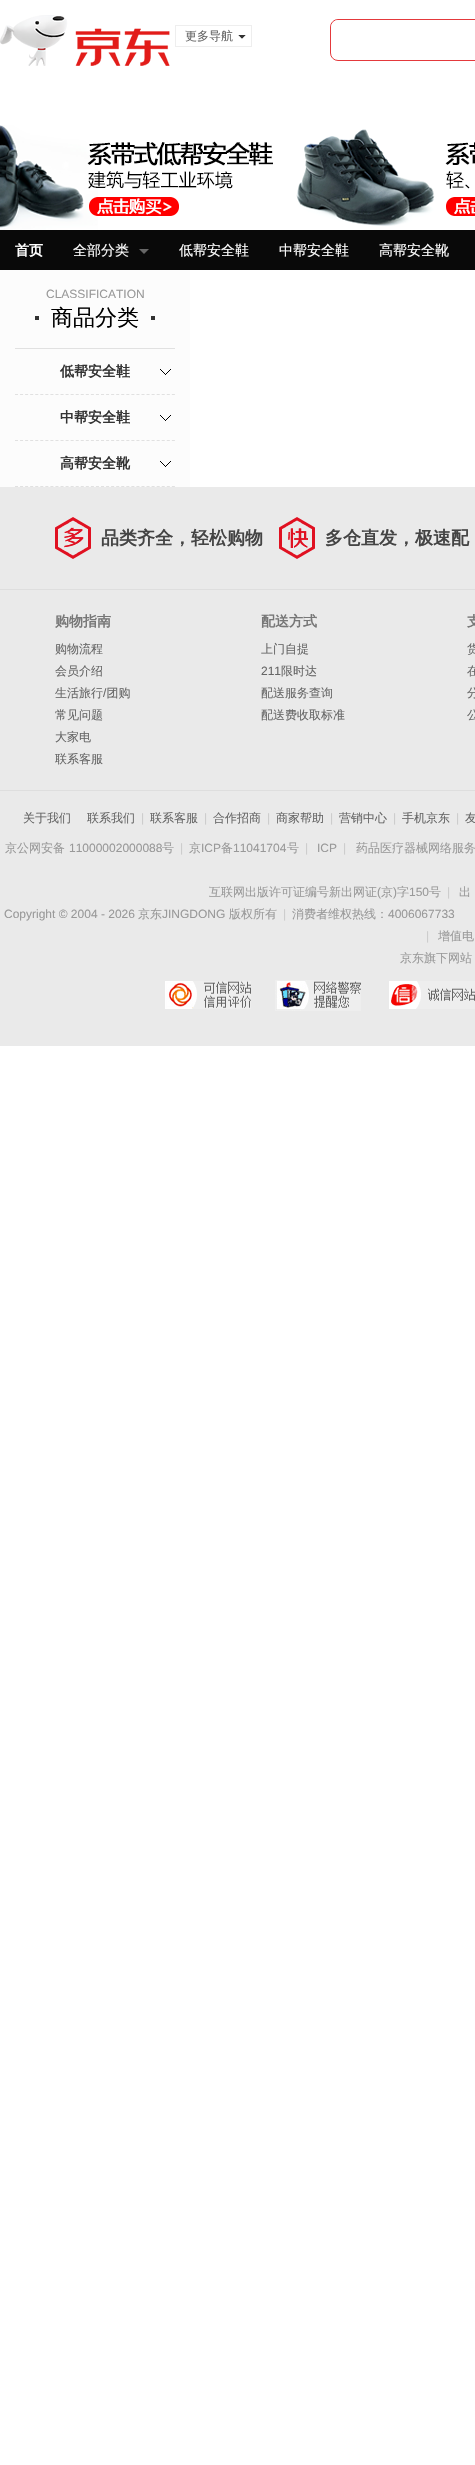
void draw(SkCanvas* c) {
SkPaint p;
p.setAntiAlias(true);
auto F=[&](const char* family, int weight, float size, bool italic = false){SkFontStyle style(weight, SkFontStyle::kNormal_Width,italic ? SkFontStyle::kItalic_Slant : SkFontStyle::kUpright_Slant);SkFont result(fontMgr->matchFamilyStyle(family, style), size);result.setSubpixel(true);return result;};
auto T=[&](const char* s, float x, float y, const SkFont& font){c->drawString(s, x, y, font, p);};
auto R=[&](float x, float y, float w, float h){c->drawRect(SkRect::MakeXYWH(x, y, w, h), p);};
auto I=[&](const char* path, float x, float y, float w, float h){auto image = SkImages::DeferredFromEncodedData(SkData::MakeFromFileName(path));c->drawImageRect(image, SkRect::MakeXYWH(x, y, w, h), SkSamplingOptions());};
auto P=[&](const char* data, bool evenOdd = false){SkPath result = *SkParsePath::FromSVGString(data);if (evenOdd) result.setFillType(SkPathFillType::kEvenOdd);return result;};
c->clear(0xffffffff);
I("1.png",0,15,170,51);
p.setStroke(true);
p.setStrokeWidth(1);
p.setColor(0xffeeeeee);
c->drawRect(SkRect::MakeXYWH(175.5,25.5,76,21),p);
auto f1 = F("WenQuanYi Zen Hei",500,12);
p.setStroke(false);
p.setColor(0xff666666);
T("更多导航",185,40,f1);
p.setColor(0xff333333);
c->drawPath(P("M238 35h8l-4 4z"),p);
p.setColor(0xffffffff);
c->drawPath(P("M246 35v8l-4-4zm-8 8v-8l4 4z"),p);
p.setStroke(true);
p.setColor(0xffe4393c);
c->drawRoundRect(SkRect::MakeXYWH(330.5,19.5,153,41),7.5,7.5,p);
p.setStroke(false);
p.setColor(0xffffffff);
c->drawPath(P("M339 20h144v30h-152v-22c0-4.5 3.5-8 8-8z"),p);
I("2.png",0,125,475,105);
p.setColor(0xff090909);
R(0,230,475,40);
auto f2 = F("WenQuanYi Zen Hei",700,14);
p.setColor(0xffffffff);
T("首页",15,255,f2);
auto f3 = F("WenQuanYi Zen Hei",500,14);
T("全部分类",73,255,f3);
p.setColor(0xff666666);
c->drawPath(P("M139 249h10l-5 5z"),p);
p.setColor(0xffffffff);
T("低帮安全鞋",179,255,f3);
T("中帮安全鞋",279,255,f3);
T("高帮安全靴",379,255,f3);
p.setColor(0xfffcfcfc);
R(0,270,190,217);
auto f4 = F("Liberation Sans",400,12);
p.setColor(0xff999999);
T("CLASSIFICATION",46,298,f4);
p.setColor(0xffe1e1e1);
R(15,348,160,1);
p.setColor(0xff333333);
R(35,316,4,4);
auto f5 = F("WenQuanYi Zen Hei",500,22);
p.setColor(0xff000000);
T("商品分类",51,325,f5);
p.setColor(0xff333333);
R(151,316,4,4);
p.setStroke(true);
p.setColor(0xffe1e1e1);
p.setPathEffect(SkDashPathEffect::Make({{3,2.06f}}, 0));
c->drawPath(P("M15 394.5h160"),p);
p.setPathEffect(nullptr);
p.setStroke(false);
p.setColor(0xff333333);
T("低帮安全鞋",60,376,f2);
I("3.png",160,369,11,6);
p.setStroke(true);
p.setColor(0xffe1e1e1);
p.setPathEffect(SkDashPathEffect::Make({{3,2.06f}}, 0));
c->drawPath(P("M15 440.5h160"),p);
p.setPathEffect(nullptr);
p.setStroke(false);
p.setColor(0xff333333);
T("中帮安全鞋",60,422,f2);
I("3.png",160,415,11,6);
p.setStroke(true);
p.setColor(0xffe1e1e1);
p.setPathEffect(SkDashPathEffect::Make({{3,2.06f}}, 0));
c->drawPath(P("M15 486.5h160"),p);
p.setPathEffect(nullptr);
p.setStroke(false);
p.setColor(0xff333333);
T("高帮安全靴",60,468,f2);
I("3.png",160,461,11,6);
p.setColor(0xffeaeaea);
R(0,487,475,559);
I("4.png",55,517,36,42);
auto f6 = F("WenQuanYi Zen Hei",700,18);
p.setColor(0xff444444);
T("品类齐全，轻松购物",101,544,f6);
I("5.png",279,517,36,42);
T("多仓直发，极速配",325,544,f6);
p.setColor(0xffdedede);
R(0,589,475,1);
R(0,790,475,1);
p.setColor(0xff777777);
T("购物指南",55,626,f2);
p.setColor(0xff666666);
T("购物流程",55,653,f1);
T("会员介绍",55,675,f1);
T("生活旅行 团购",55,697,f1);
T("/",103,697,f4);
T("常见问题",55,719,f1);
T("大家电",55,741,f1);
T("联系客服",55,763,f1);
p.setColor(0xff777777);
T("配送方式",261,626,f2);
p.setColor(0xff666666);
T("上门自提",261,653,f1);
T("211",261,675,f4);
T("限时达",281,675,f1);
T("配送服务查询",261,697,f1);
T("配送费收取标准",261,719,f1);
p.setColor(0xff777777);
T("支",467,626,f2);
p.setColor(0xff666666);
T("货",467,653,f1);
T("在",467,675,f1);
T("分",467,697,f1);
T("公",467,719,f1);
T("关于我们",23,822,f1);
T("联系我们",87,822,f1);
p.setColor(0xffcccccc);
T("|",141,822,f4);
p.setColor(0xff666666);
T("联系客服",150,822,f1);
p.setColor(0xffcccccc);
T("|",204,822,f4);
p.setColor(0xff666666);
T("合作招商",213,822,f1);
p.setColor(0xffcccccc);
T("|",267,822,f4);
p.setColor(0xff666666);
T("商家帮助",276,822,f1);
p.setColor(0xffcccccc);
T("|",330,822,f4);
p.setColor(0xff666666);
T("营销中心",339,822,f1);
p.setColor(0xffcccccc);
T("|",393,822,f4);
p.setColor(0xff666666);
T("手机京东",402,822,f1);
p.setColor(0xffcccccc);
T("|",456,822,f4);
p.setColor(0xff666666);
T("友",465,822,f1);
p.setColor(0xff999999);
T("京公网安备",5,852,f1);
T("11000002000088",69,852,f4);
T("号",162,852,f1);
p.setColor(0xffcccccc);
T("|",180,852,f4);
p.setColor(0xff999999);
T("京",189,852,f1);
T("ICP",201,852,f4);
T("备",221,852,f1);
T("11041704",233,852,f4);
T("号",287,852,f1);
p.setColor(0xffcccccc);
T("|",305,852,f4);
p.setColor(0xff999999);
T("ICP",317,852,f4);
p.setColor(0xffcccccc);
T("|",343,852,f4);
p.setColor(0xff999999);
T("药品医疗器械网络服务",356,852,f1);
T("互联网出版许可证编号新出网证",209,896,f1);
T("(",377,896,f4);
T("京",381,896,f1);
T(")",393,896,f4);
T("字",397,896,f1);
T("150",409,896,f4);
T("号",429,896,f1);
p.setColor(0xffcccccc);
T("|",447,896,f4);
p.setColor(0xff999999);
T("出",459,896,f1);
T("Copyright © 2004 - 2026",4,918,f4);
T("京东",138,918,f1);
T("JINGDONG",162,918,f4);
T("版权所有",229,918,f1);
p.setColor(0xffcccccc);
T("|",283,918,f4);
p.setColor(0xff999999);
T("消费者维权热线：",292,918,f1);
T("4006067733",388,918,f4);
p.setColor(0xffcccccc);
T("|",426,940,f4);
p.setColor(0xff999999);
T("增值电",438,940,f1);
T("京东旗下网站",400,962,f1);
I("6.png",165,981,86,28);
I("7.png",275,980,86,31);
I("8.png",389,981,86,28);
}
